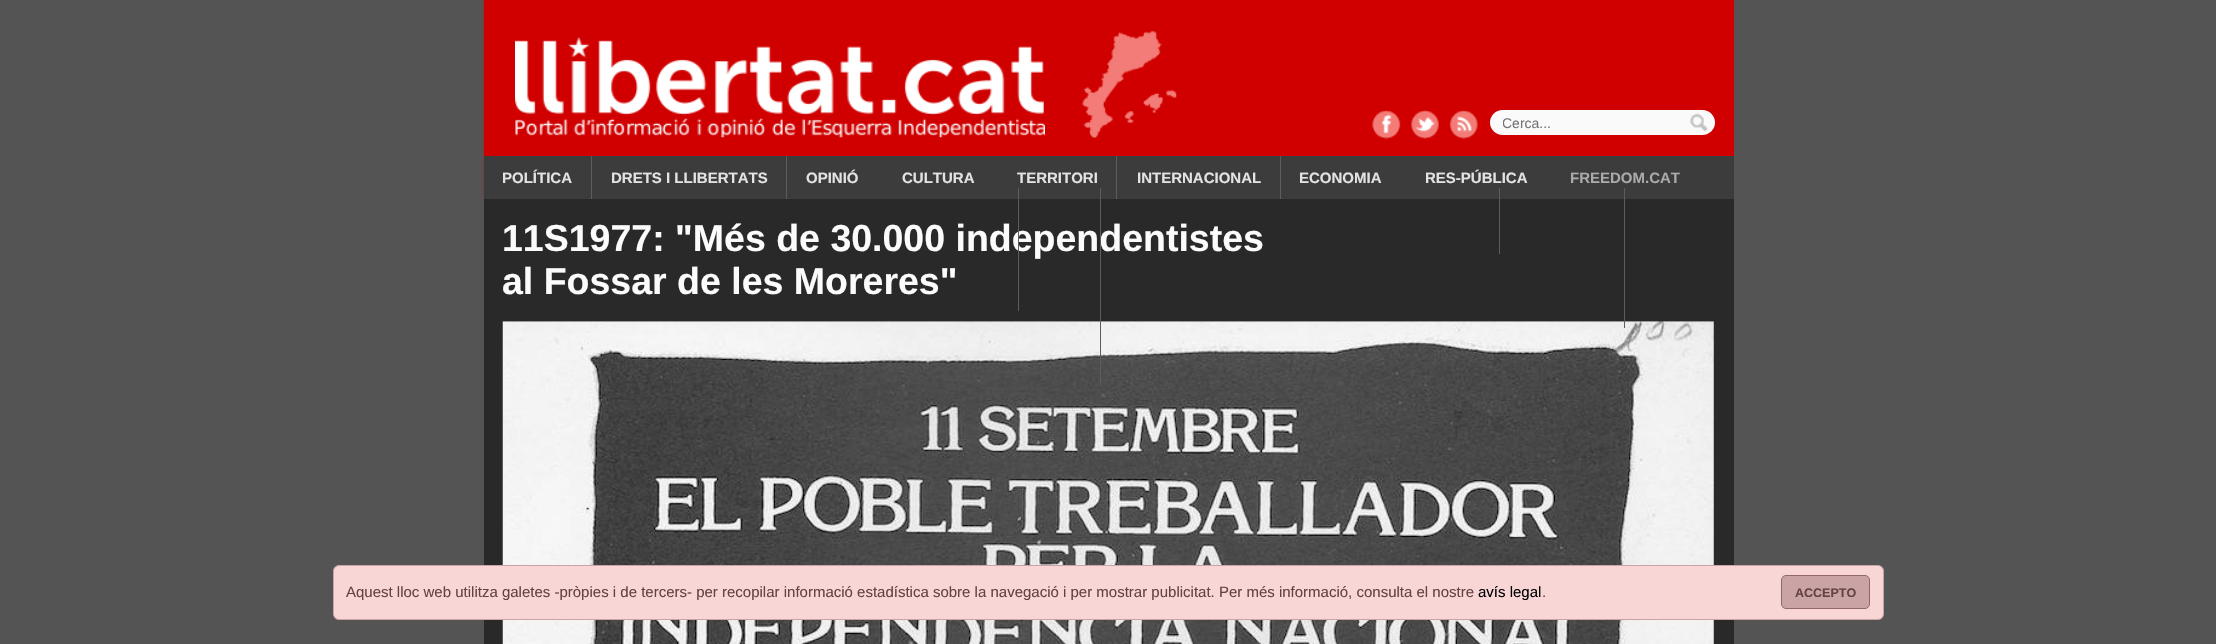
void draw(SkCanvas* c) {
SkPaint p;
p.setAntiAlias(true);
auto F=[&](const char* family, int weight, float size, bool italic = false){SkFontStyle style(weight, SkFontStyle::kNormal_Width,italic ? SkFontStyle::kItalic_Slant : SkFontStyle::kUpright_Slant);SkFont result(fontMgr->matchFamilyStyle(family, style), size);result.setSubpixel(true);return result;};
auto T=[&](const char* s, float x, float y, const SkFont& font){c->drawString(s, x, y, font, p);};
auto R=[&](float x, float y, float w, float h){c->drawRect(SkRect::MakeXYWH(x, y, w, h), p);};
auto Q=[&](float x, float y, float w, float h, float radius){c->drawRoundRect(SkRect::MakeXYWH(x, y, w, h), radius, radius, p);};
auto I=[&](const char* path, float x, float y, float w, float h){auto image = SkImages::DeferredFromEncodedData(SkData::MakeFromFileName(path));c->drawImageRect(image, SkRect::MakeXYWH(x, y, w, h), SkSamplingOptions());};
c->clear(0xff545454);
p.setColor(0xffd00000);
R(484,0,1250,156);
I("1.png",483,0,1,199);
I("2.png",1082,31,95,107);
I("3.png",515,37,530,101);
I("4.png",1372,110,29,29);
I("5.png",1411,110,28,29);
I("6.png",1449,110,29,29);
p.setColor(0xfffafafa);
Q(1490,110,225,25,12.5);
I("7.png",1690,113,18,19);
c->save();
c->clipRect(SkRect::MakeXYWH(1503,115,185,15));
auto f1 = F("Liberation Sans",400,14);
p.setColor(0xff757575);
T("Cerca...",1502,128,f1);
c->restore();
p.setColor(0xff3c3c3c);
R(484,156,1250,43);
auto f2 = F("Liberation Sans",700,15);
p.setColor(0xffe3e3e3);
T("POLÍTICA",502,183,f2);
p.setColor(0xff5d5d5d);
R(591,156,1,43);
p.setColor(0xffe3e3e3);
T("DRETS I LLIBERTATS",611,183,f2);
p.setColor(0xff5d5d5d);
R(786,156,1,43);
p.setColor(0xffe3e3e3);
T("OPINIÓ",806,183,f2);
p.setColor(0xff292929);
R(484,199,1250,445);
auto f3 = F("Liberation Sans",700,37.5);
p.setColor(0xfffbfbfb);
T("11S1977: \"Més de 30.000 independentistes",502,251,f3);
p.setColor(0xff5d5d5d);
R(1018,188,1,123);
p.setColor(0xffe3e3e3);
T("CULTURA",902,183,f2);
I("8.png",502,321,1212,323);
p.setColor(0xff5d5d5d);
R(1100,188,1,198);
p.setColor(0xffe3e3e3);
T("TERRITORI",1017,183,f2);
p.setColor(0xff5d5d5d);
R(1116,156,1,43);
p.setColor(0xffe3e3e3);
T("INTERNACIONAL",1137,183,f2);
p.setColor(0xff5d5d5d);
R(1280,156,1,43);
p.setColor(0xffe3e3e3);
T("ECONOMIA",1299,183,f2);
p.setColor(0xff5d5d5d);
R(1499,188,1,66);
p.setColor(0xffe3e3e3);
T("RES-PÚBLICA",1425,183,f2);
p.setColor(0xff5d5d5d);
R(1624,188,1,140);
p.setColor(0xffaaaaaa);
T("FREEDOM.CAT",1570,183,f2);
p.setColor(0xfff8d6d6);
c->drawRoundRect(SkRect::MakeXYWH(333.5,565.5,1550,54),5.5,5.5,p);
p.setStroke(true);
p.setStrokeWidth(1);
p.setColor(0xffcaa4a4);
c->drawRoundRect(SkRect::MakeXYWH(333.5,565.5,1550,54),5.5,5.5,p);
auto f4 = F("Liberation Sans",400,15);
p.setStroke(false);
p.setColor(0xff644242);
T("Aquest lloc web utilitza galetes -pròpies i de tercers- per recopilar informació estadística sobre la navegació i per mostrar publicitat. Per més informació, consulta el nostre",346,597,f4);
p.setColor(0xff000000);
T("avís legal",1478,597,f4);
p.setColor(0xff644242);
T(".",1542,597,f4);
p.setColor(0xffcaa4a4);
c->drawRoundRect(SkRect::MakeXYWH(1781.5,575.5,88,33),4.5,4.5,p);
p.setStroke(true);
p.setColor(0xff916767);
c->drawRoundRect(SkRect::MakeXYWH(1781.5,575.5,88,33),4.5,4.5,p);
auto f5 = F("Liberation Sans",700,12.5);
p.setStroke(false);
p.setColor(0xff644242);
T("ACCEPTO",1795,597,f5);
p.setColor(0xfffbfbfb);
T("al Fossar de les Moreres\"",502,294,f3);
}
